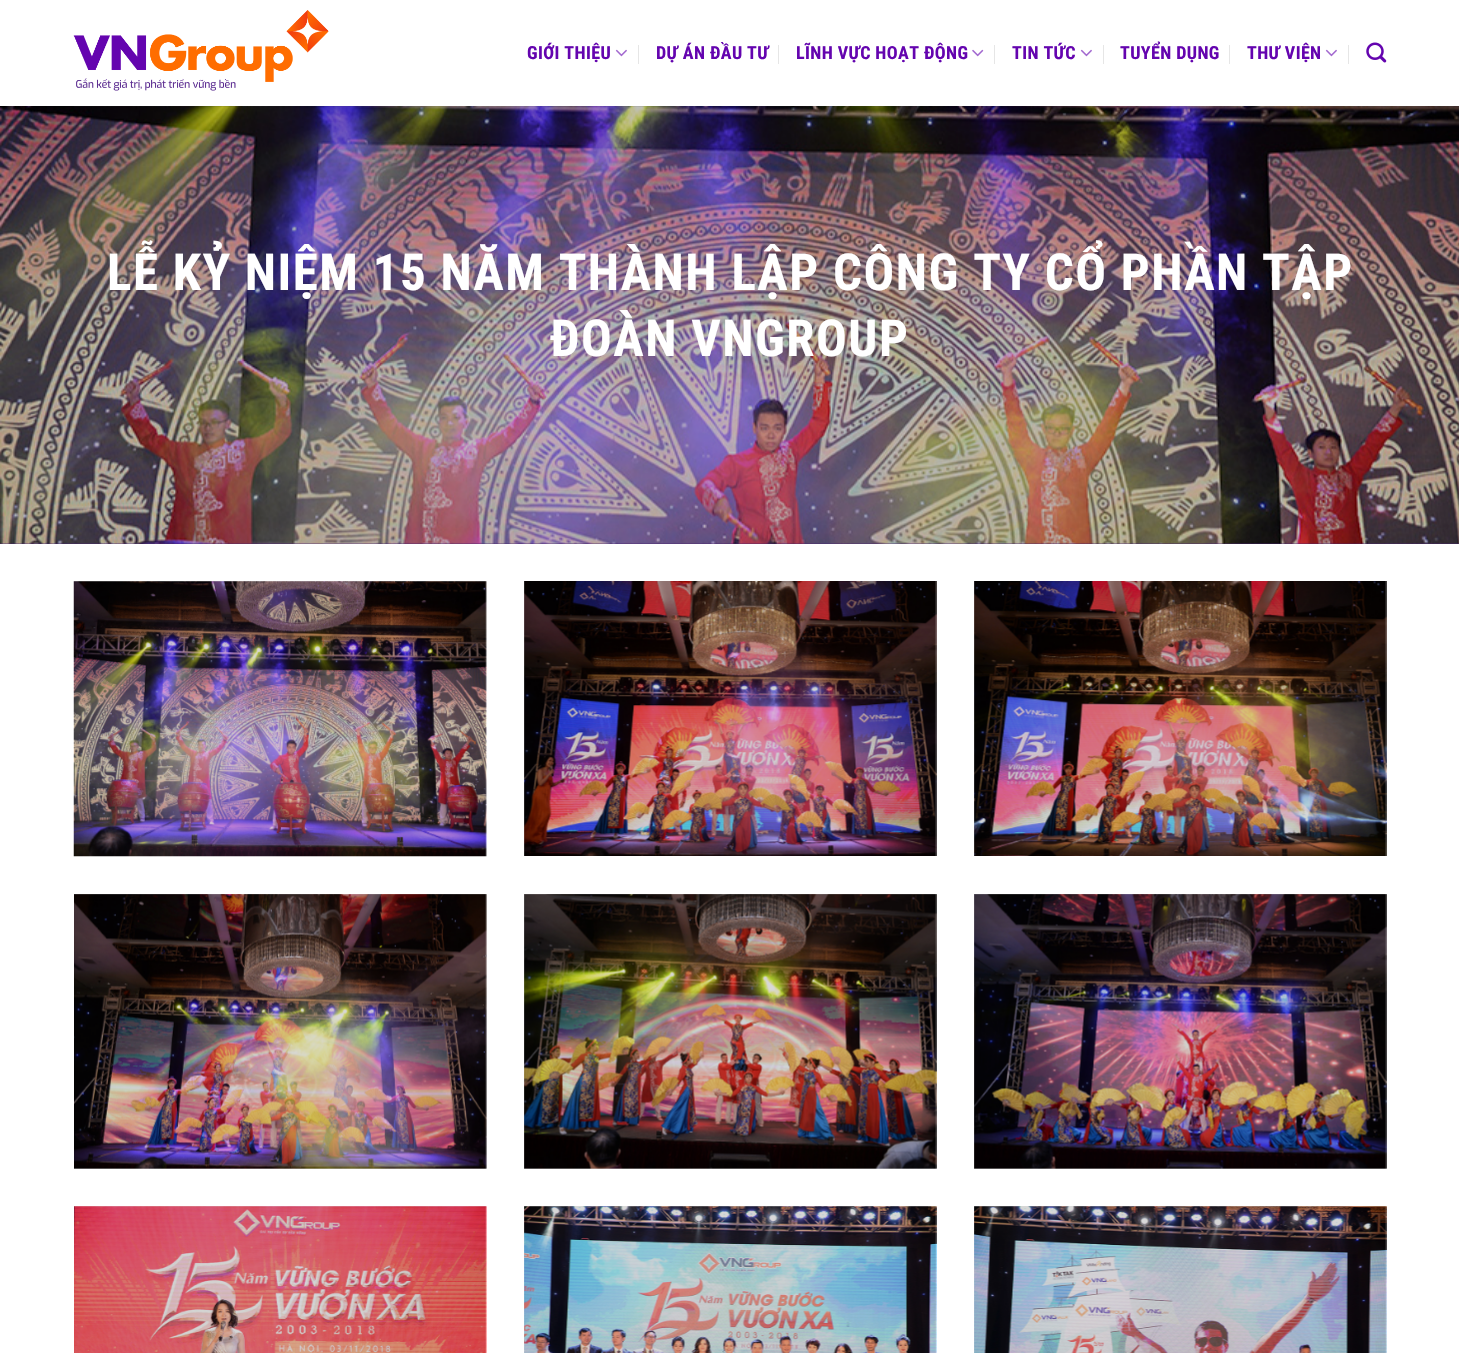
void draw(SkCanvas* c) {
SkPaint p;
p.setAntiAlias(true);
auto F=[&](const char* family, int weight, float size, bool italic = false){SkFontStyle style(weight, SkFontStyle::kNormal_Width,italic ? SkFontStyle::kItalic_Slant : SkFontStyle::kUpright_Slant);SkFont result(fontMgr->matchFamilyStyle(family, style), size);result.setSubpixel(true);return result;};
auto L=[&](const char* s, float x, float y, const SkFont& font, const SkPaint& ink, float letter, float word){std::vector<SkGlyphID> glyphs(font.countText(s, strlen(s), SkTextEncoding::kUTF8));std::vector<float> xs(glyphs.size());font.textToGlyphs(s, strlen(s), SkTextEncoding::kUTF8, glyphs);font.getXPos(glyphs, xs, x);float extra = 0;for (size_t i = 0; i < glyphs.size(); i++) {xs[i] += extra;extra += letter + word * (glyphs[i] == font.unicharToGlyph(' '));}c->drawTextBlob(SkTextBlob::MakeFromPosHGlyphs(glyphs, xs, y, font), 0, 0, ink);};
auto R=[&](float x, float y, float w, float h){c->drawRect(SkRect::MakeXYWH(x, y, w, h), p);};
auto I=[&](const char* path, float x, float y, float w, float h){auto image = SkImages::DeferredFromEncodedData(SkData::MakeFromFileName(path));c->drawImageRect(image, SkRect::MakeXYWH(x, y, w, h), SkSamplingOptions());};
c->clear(0xffffffff);
p.setColor(0xffd9d9d9);
R(974,1206,412,147);
R(524,1206,412,147);
R(74,1206,412,147);
R(974,894,412,275);
R(524,894,412,275);
R(74,894,412,275);
R(74,581,412,275);
I("1.png",73,10,256,81);
auto f1 = F("Roboto Condensed",700,18);
p.setColor(0xff6404af);
L("GIỚI THIỆU",527,59,f1,p,.4,0);
I("2.png",615,49,12,8);
p.setColor(0xffe6e6e6);
R(638,45,1,19);
p.setColor(0xff6404af);
L("DỰ ÁN ĐẦU TƯ",656,59,f1,p,.4,0);
p.setColor(0xffe6e6e6);
R(778,45,1,19);
p.setColor(0xff6404af);
L("LĨNH VỰC HOẠT ĐỘNG",796,59,f1,p,.4,0);
I("3.png",972,49,12,8);
p.setColor(0xffe6e6e6);
R(994,45,1,19);
p.setColor(0xff6404af);
L("TIN TỨC",1012,59,f1,p,.4,0);
I("2.png",1080,49,12,8);
p.setColor(0xffe6e6e6);
R(1103,45,1,19);
p.setColor(0xff6404af);
L("TUYỂN DỤNG",1120,59,f1,p,.4,0);
p.setColor(0xffe6e6e6);
R(1229,45,1,19);
p.setColor(0xff6404af);
L("THƯ VIỆN",1247,59,f1,p,.4,0);
I("2.png",1325,49,12,8);
p.setColor(0xffe6e6e6);
R(1348,45,1,19);
I("4.png",1366,42,21,21);
p.setColor(0xff45226d);
R(0,543,1459,1);
I("5.png",0,106,1459,438);
p.setColor(0x1a333333);
R(74,106,1312,1);
auto f2 = F("Roboto Condensed",700,51);
p.setColor(0xffffffff);
L("LỄ KỶ NIỆM 15 NĂM THÀNH LẬP CÔNG TY CỔ PHẦN TẬP",107,290,f2,p,1.5,0);
L("ĐOÀN VNGROUP",550,356,f2,p,1.5,0);
I("6.png",73,581,414,276);
I("7.png",524,581,413,275);
I("8.png",974,581,413,275);
I("9.png",74,894,413,275);
I("10.png",524,894,413,275);
I("11.png",974,894,413,275);
I("12.png",74,1206,413,147);
I("13.png",524,1206,413,147);
I("14.png",974,1206,413,147);
}
